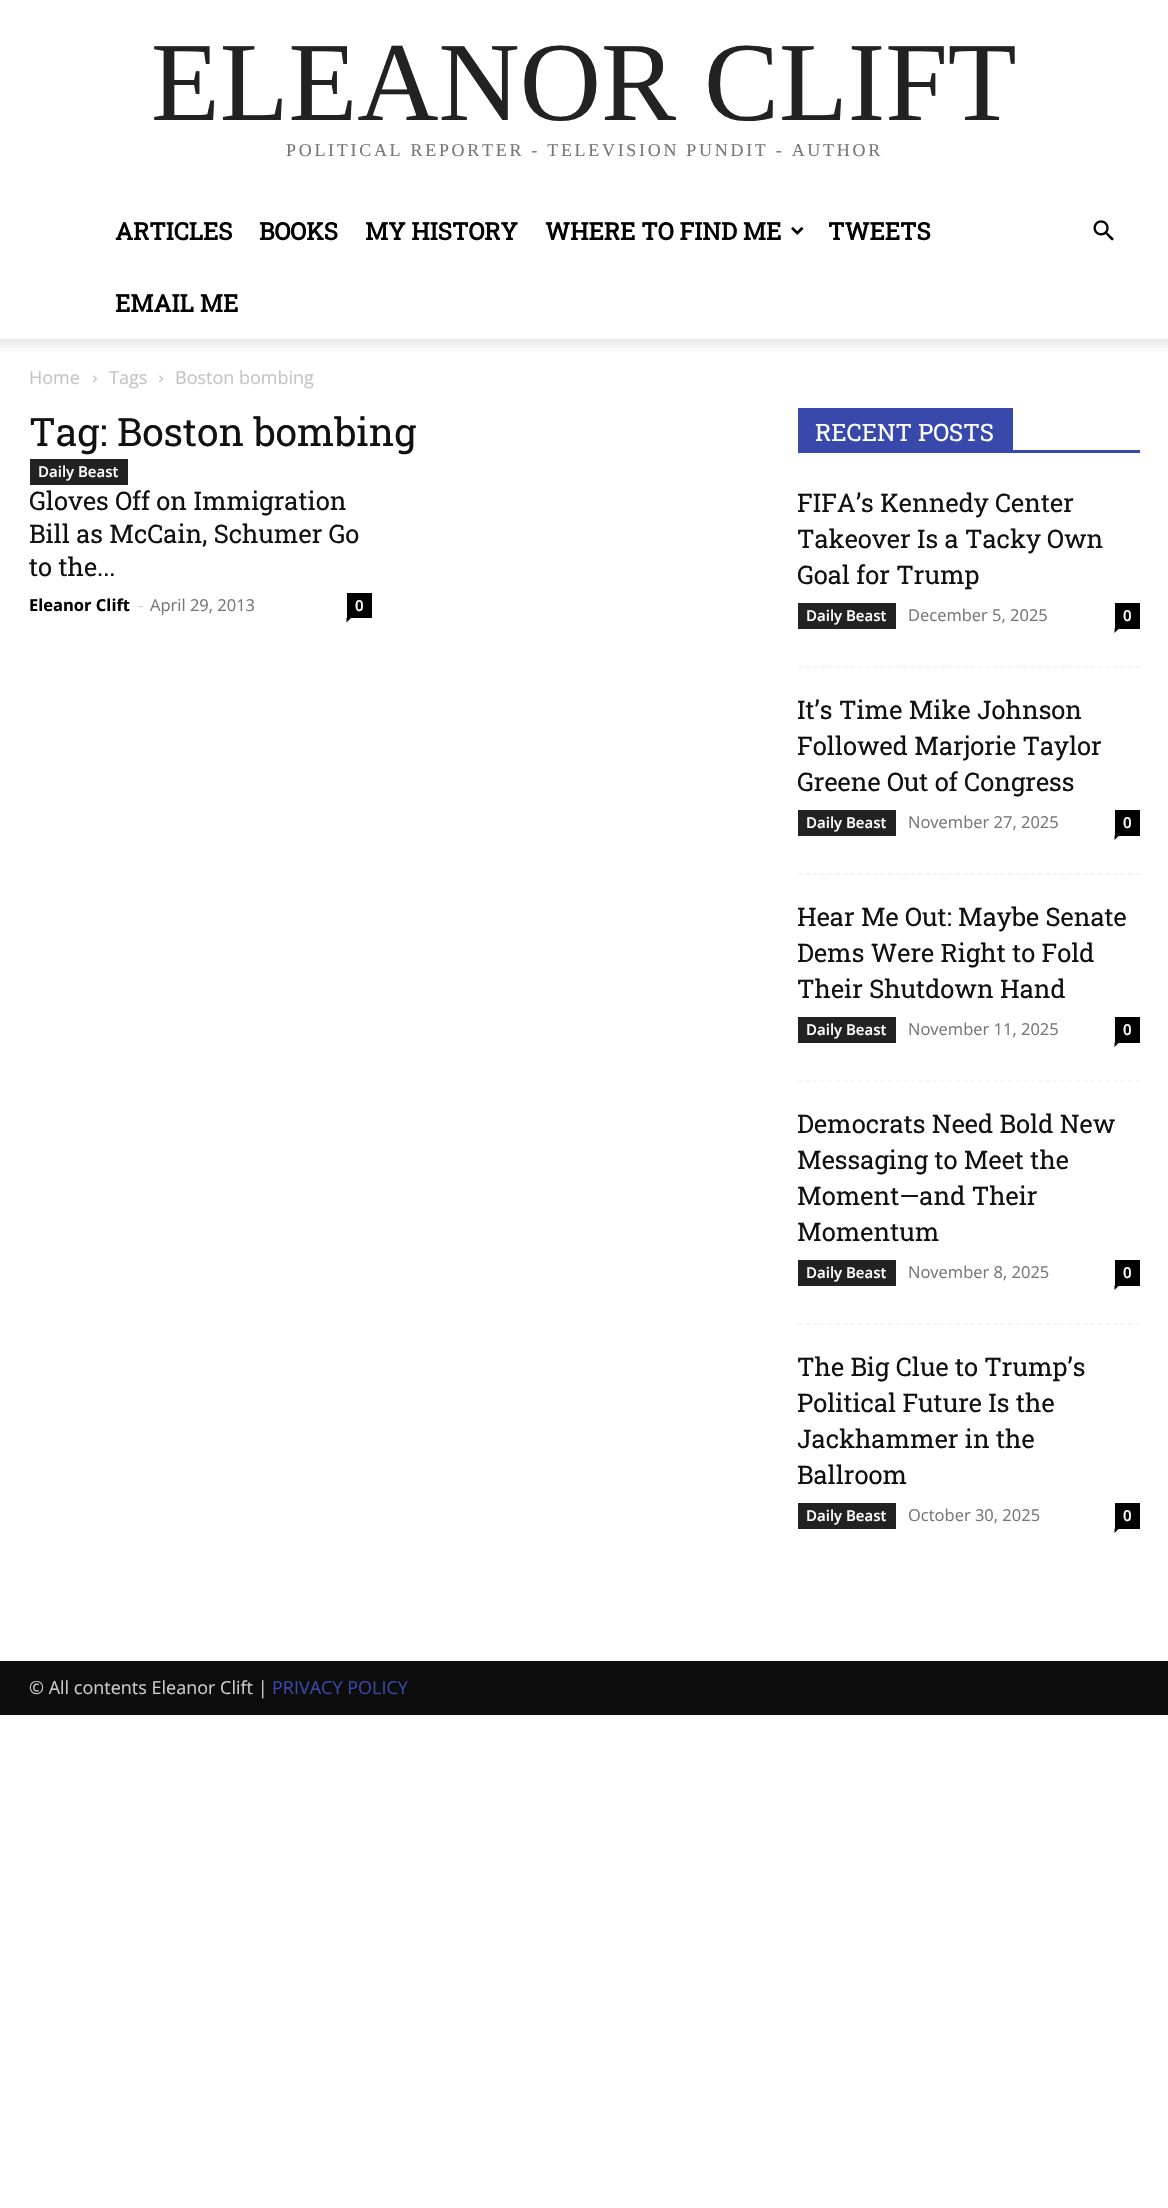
void draw(SkCanvas* c) {
SkPaint p;
p.setAntiAlias(true);
auto F=[&](const char* family, int weight, float size, bool italic = false){SkFontStyle style(weight, SkFontStyle::kNormal_Width,italic ? SkFontStyle::kItalic_Slant : SkFontStyle::kUpright_Slant);SkFont result(fontMgr->matchFamilyStyle(family, style), size);result.setSubpixel(true);return result;};
auto T=[&](const char* s, float x, float y, const SkFont& font){c->drawString(s, x, y, font, p);};
auto L=[&](const char* s, float x, float y, const SkFont& font, const SkPaint& ink, float letter, float word){std::vector<SkGlyphID> glyphs(font.countText(s, strlen(s), SkTextEncoding::kUTF8));std::vector<float> xs(glyphs.size());font.textToGlyphs(s, strlen(s), SkTextEncoding::kUTF8, glyphs);font.getXPos(glyphs, xs, x);float extra = 0;for (size_t i = 0; i < glyphs.size(); i++) {xs[i] += extra;extra += letter + word * (glyphs[i] == font.unicharToGlyph(' '));}c->drawTextBlob(SkTextBlob::MakeFromPosHGlyphs(glyphs, xs, y, font), 0, 0, ink);};
auto R=[&](float x, float y, float w, float h){c->drawRect(SkRect::MakeXYWH(x, y, w, h), p);};
auto I=[&](const char* path, float x, float y, float w, float h){auto image = SkImages::DeferredFromEncodedData(SkData::MakeFromFileName(path));c->drawImageRect(image, SkRect::MakeXYWH(x, y, w, h), SkSamplingOptions());};
auto P=[&](const char* data, bool evenOdd = false){SkPath result = *SkParsePath::FromSVGString(data);if (evenOdd) result.setFillType(SkPathFillType::kEvenOdd);return result;};
c->clear(0xffffffff);
auto f1 = F("Liberation Serif",400,112.5);
p.setColor(0xff222222);
T("ELEANOR CLIFT",151,120,f1);
auto f2 = F("Liberation Serif",400,18);
p.setColor(0xff767676);
L("POLITICAL REPORTER - TELEVISION PUNDIT - AUTHOR",286,156,f2,p,2.7,0);
auto f3 = F("Roboto Slab",700,24);
p.setColor(0xff000000);
T("ARTICLES",115,240,f3);
T("BOOKS",259,240,f3);
T("MY HISTORY",365,240,f3);
T("WHERE TO FIND ME",545,240,f3);
I("1.png",791,227,13,8);
T("TWEETS",828,240,f3);
T("EMAIL ME",115,312,f3);
I("2.png",1093,220,21,21);
I("3.png",0,339,1168,13);
auto f4 = F("Open Sans",400,18);
p.setColor(0xffc3c3c3);
T("Home",29,384,f4);
I("4.png",93,375,4,8);
T("Tags",109,384,f4);
I("4.png",159,375,4,8);
T("Boston bombing",175,384,f4);
auto f5 = F("Roboto Slab",400,39);
p.setColor(0xff111111);
T("Tag: Boston bombing",29,446,f5);
p.setColor(0xff222222);
R(30,459,98,26);
auto f6 = F("Open Sans",600,15);
p.setColor(0xffffffff);
T("Daily Beast",38,477,f6);
auto f7 = F("Roboto Slab",400,25.5);
p.setColor(0xff111111);
T("Gloves Off on Immigration",29,510,f7);
T("Bill as McCain, Schumer Go",29,543,f7);
T("to the...",29,576,f7);
auto f8 = F("Open Sans",700,16.5);
p.setColor(0xff000000);
T("Eleanor Clift",29,611,f8);
auto f9 = F("Open Sans",400,16.5);
p.setColor(0xffcccccc);
T("-",138,611,f9);
p.setColor(0xff767676);
T("April 29, 2013",150,611,f9);
p.setColor(0xff000000);
R(347,593,25,25);
p.setColor(0xffffffff);
T("0",355,611,f6);
p.setColor(0xff000000);
c->drawPath(P("M346.5 618h4.5l-4.5 4.5z"),p);
p.setColor(0xff3949ab);
R(798,450,342,3);
R(798,408,215,42);
auto f10 = F("Roboto Slab",400,24);
p.setColor(0xffffffff);
T("RECENT POSTS",815,441,f10);
p.setStroke(true);
p.setStrokeWidth(1.5);
p.setColor(0xfff2f2f2);
p.setPathEffect(SkDashPathEffect::Make({{4.5f,3}}, 0));
c->drawPath(P("M798 667h342"),p);
p.setPathEffect(nullptr);
p.setStroke(false);
p.setColor(0xff111111);
T("FIFA’s Kennedy Center",797,512,f7);
T("Takeover Is a Tacky Own",797,548,f7);
T("Goal for Trump",797,584,f7);
p.setColor(0xff222222);
R(798,603,98,26);
p.setColor(0xffffffff);
T("Daily Beast",806,621,f6);
p.setColor(0xff767676);
T("December 5, 2025",908,621,f9);
p.setColor(0xff000000);
R(1115,603,25,26);
p.setColor(0xffffffff);
T("0",1123,621,f6);
p.setColor(0xff000000);
c->drawPath(P("M1114.5 628.5h4.5l-4.5 4.5z"),p);
p.setStroke(true);
p.setColor(0xfff2f2f2);
p.setPathEffect(SkDashPathEffect::Make({{4.5f,3}}, 0));
c->drawPath(P("M798 874h342"),p);
p.setPathEffect(nullptr);
p.setStroke(false);
p.setColor(0xff111111);
T("It’s Time Mike Johnson",797,719,f7);
T("Followed Marjorie Taylor",797,755,f7);
T("Greene Out of Congress",797,791,f7);
p.setColor(0xff222222);
R(798,810,98,26);
p.setColor(0xffffffff);
T("Daily Beast",806,828,f6);
p.setColor(0xff767676);
T("November 27, 2025",908,828,f9);
p.setColor(0xff000000);
R(1115,810,25,26);
p.setColor(0xffffffff);
T("0",1123,828,f6);
p.setColor(0xff000000);
c->drawPath(P("M1114.5 835.5h4.5l-4.5 4.5z"),p);
p.setStroke(true);
p.setColor(0xfff2f2f2);
p.setPathEffect(SkDashPathEffect::Make({{4.5f,3}}, 0));
c->drawPath(P("M798 1081h342"),p);
p.setPathEffect(nullptr);
p.setStroke(false);
p.setColor(0xff111111);
T("Hear Me Out: Maybe Senate",797,926,f7);
T("Dems Were Right to Fold",797,962,f7);
T("Their Shutdown Hand",797,998,f7);
p.setColor(0xff222222);
R(798,1017,98,26);
p.setColor(0xffffffff);
T("Daily Beast",806,1035,f6);
p.setColor(0xff767676);
T("November 11, 2025",908,1035,f9);
p.setColor(0xff000000);
R(1115,1017,25,26);
p.setColor(0xffffffff);
T("0",1123,1035,f6);
p.setColor(0xff000000);
c->drawPath(P("M1114.5 1042.5h4.5l-4.5 4.5z"),p);
p.setStroke(true);
p.setColor(0xfff2f2f2);
p.setPathEffect(SkDashPathEffect::Make({{4.5f,3}}, 0));
c->drawPath(P("M798 1324h342"),p);
p.setPathEffect(nullptr);
p.setStroke(false);
p.setColor(0xff111111);
T("Democrats Need Bold New",797,1133,f7);
T("Messaging to Meet the",797,1169,f7);
T("Moment—and Their",797,1205,f7);
T("Momentum",797,1241,f7);
p.setColor(0xff222222);
R(798,1260,98,26);
p.setColor(0xffffffff);
T("Daily Beast",806,1278,f6);
p.setColor(0xff767676);
T("November 8, 2025",908,1278,f9);
p.setColor(0xff000000);
R(1115,1260,25,26);
p.setColor(0xffffffff);
T("0",1123,1278,f6);
p.setColor(0xff000000);
c->drawPath(P("M1114.5 1285.5h4.5l-4.5 4.5z"),p);
p.setColor(0xff111111);
T("The Big Clue to Trump’s",797,1376,f7);
T("Political Future Is the",797,1412,f7);
T("Jackhammer in the",797,1448,f7);
T("Ballroom",797,1484,f7);
p.setColor(0xff222222);
R(798,1503,98,26);
p.setColor(0xffffffff);
T("Daily Beast",806,1521,f6);
p.setColor(0xff767676);
T("October 30, 2025",908,1521,f9);
p.setColor(0xff000000);
R(1115,1503,25,26);
p.setColor(0xffffffff);
T("0",1123,1521,f6);
p.setColor(0xff000000);
c->drawPath(P("M1114.5 1528.5h4.5l-4.5 4.5z"),p);
p.setColor(0xff0d0d0d);
R(0,1661,1168,54);
p.setColor(0xffcccccc);
T("© All contents Eleanor Clift |",29,1694,f4);
p.setColor(0xff3949ab);
T("PRIVACY POLICY",272,1694,f4);
}
